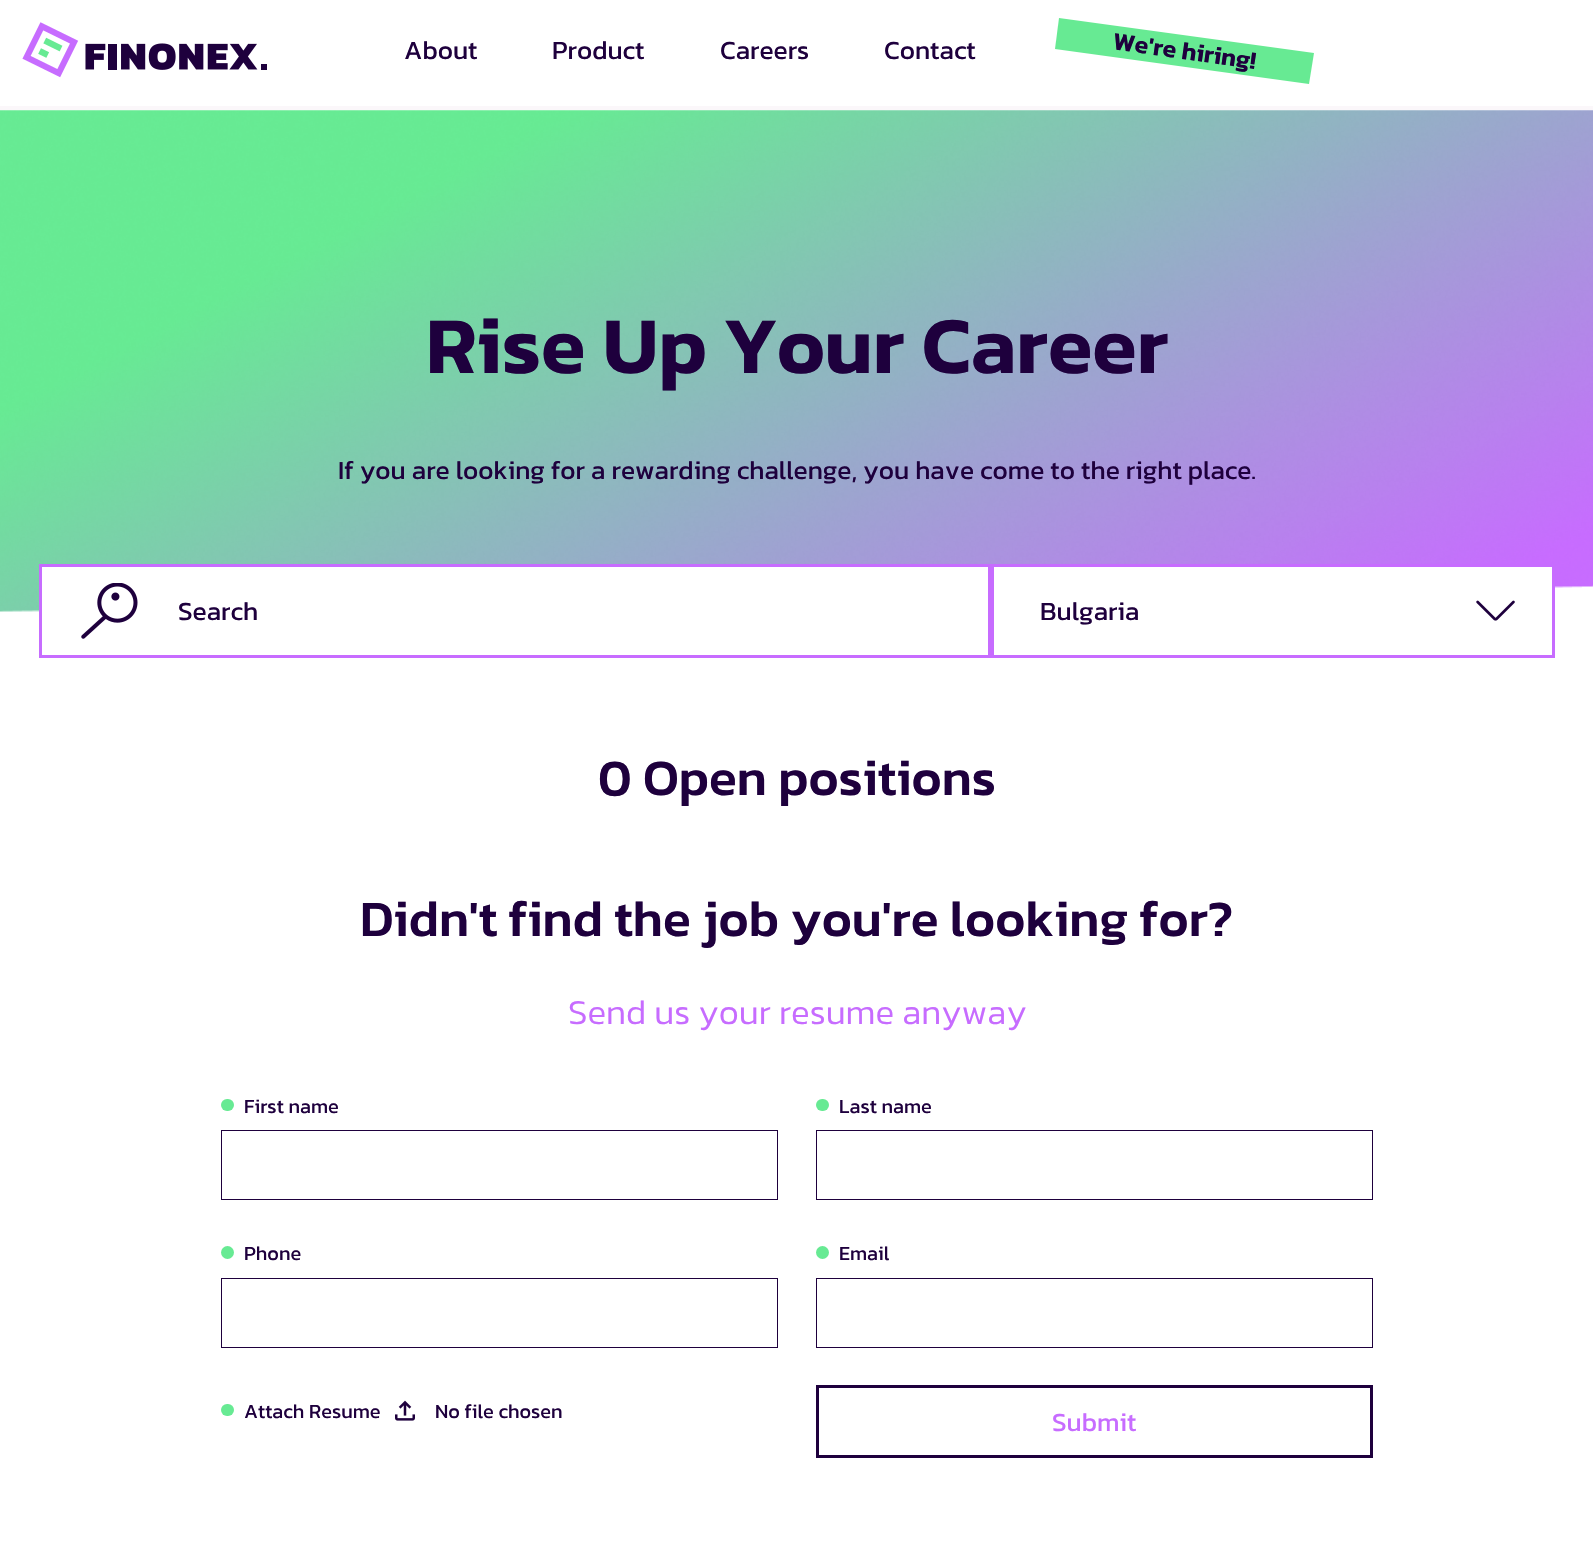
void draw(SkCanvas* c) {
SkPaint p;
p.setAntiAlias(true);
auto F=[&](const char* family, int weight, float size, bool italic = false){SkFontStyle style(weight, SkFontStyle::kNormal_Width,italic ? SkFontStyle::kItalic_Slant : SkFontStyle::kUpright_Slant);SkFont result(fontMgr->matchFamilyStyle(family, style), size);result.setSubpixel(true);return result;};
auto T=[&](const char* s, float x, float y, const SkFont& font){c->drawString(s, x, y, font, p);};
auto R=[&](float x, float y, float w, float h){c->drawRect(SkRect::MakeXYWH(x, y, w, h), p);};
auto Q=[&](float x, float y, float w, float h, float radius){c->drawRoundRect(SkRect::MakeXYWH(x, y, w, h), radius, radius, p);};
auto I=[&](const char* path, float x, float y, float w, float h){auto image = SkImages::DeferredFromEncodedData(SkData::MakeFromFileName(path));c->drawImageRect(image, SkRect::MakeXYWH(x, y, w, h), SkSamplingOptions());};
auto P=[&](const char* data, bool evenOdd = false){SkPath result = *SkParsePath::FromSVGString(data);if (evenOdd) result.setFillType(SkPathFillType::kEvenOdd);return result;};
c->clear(0xffffffff);
p.setColor(0xfffbf7fa);
R(0,106,1593,4);
I("1.png",22,22,245,56);
auto f1 = F("Kanit",400,26.25);
p.setColor(0xff1e003d);
T("About",404,59,f1);
T("Product",552,59,f1);
T("Careers",720,59,f1);
T("Contact",884,59,f1);
p.setColor(0xff67ea93);
c->drawPath(P("M1059 18l255 35l-5 31l-254-35z"),p);
auto f2 = F("Kanit",600,25);
p.setColor(0xff1e003d);
c->save();
c->rotate(8,1112,49);
T("We're hiring!",1112,49,f2);
c->restore();
I("2.png",0,110,1593,502);
auto f3 = F("Kanit",600,81.25);
T("Rise Up Your Career",426,373,f3);
T("If you are looking for a rewarding challenge, you have come to the right place.",338,479,f1);
p.setColor(0xffffffff);
R(42,567,946,45);
p.setStroke(true);
p.setStrokeWidth(3);
p.setColor(0xffc76cff);
c->drawRect(SkRect::MakeXYWH(40.5,565.5,949,91),p);
I("3.png",81,583,57,56);
p.setStroke(false);
p.setColor(0xff1e003d);
T("Search",178,620,f1);
p.setColor(0xffffffff);
R(994,567,558,30);
p.setStroke(true);
p.setColor(0xffc76cff);
c->drawRect(SkRect::MakeXYWH(992.5,565.5,561,91),p);
p.setStroke(false);
p.setColor(0xff1e003d);
T("Bulgaria",1040,620,f1);
I("4.png",1476,600,39,21);
auto f4 = F("Kanit",500,51.25);
T("0 Open positions",598,795,f4);
T("Didn't find the job you're looking for?",360,936,f4);
auto f5 = F("Kanit",300,35);
p.setColor(0xffc76cff);
T("Send us your resume anyway",568,1024,f5);
p.setColor(0xff67ea93);
Q(221,1099,13,12,6);
auto f6 = F("Kanit",400,20);
p.setColor(0xff1e003d);
T("First name",244,1113,f6);
p.setStroke(true);
p.setStrokeWidth(1);
c->drawRect(SkRect::MakeXYWH(221.5,1130.5,556,69),p);
p.setStroke(false);
p.setColor(0xff67ea93);
Q(816,1099,13,12,6);
p.setColor(0xff1e003d);
T("Last name",839,1113,f6);
p.setStroke(true);
c->drawRect(SkRect::MakeXYWH(816.5,1130.5,556,69),p);
p.setStroke(false);
p.setColor(0xff67ea93);
c->drawCircle(227.5,1252.5,6.5,p);
p.setColor(0xff1e003d);
T("Phone",244,1260,f6);
p.setStroke(true);
c->drawRect(SkRect::MakeXYWH(221.5,1278.5,556,69),p);
p.setStroke(false);
p.setColor(0xff67ea93);
c->drawCircle(822.5,1252.5,6.5,p);
p.setColor(0xff1e003d);
T("Email",839,1260,f6);
p.setStroke(true);
c->drawRect(SkRect::MakeXYWH(816.5,1278.5,556,69),p);
p.setStroke(false);
p.setColor(0xff67ea93);
Q(221,1404,13,12,6);
p.setColor(0xff1e003d);
T("Attach Resume",244,1418,f6);
I("5.png",395,1400,20,21);
T("No file chosen",435,1418,f6);
p.setStroke(true);
p.setStrokeWidth(3);
c->drawRect(SkRect::MakeXYWH(817.5,1386.5,554,70),p);
p.setStroke(false);
p.setColor(0xffc76cff);
T("Submit",1052,1431,f1);
}
